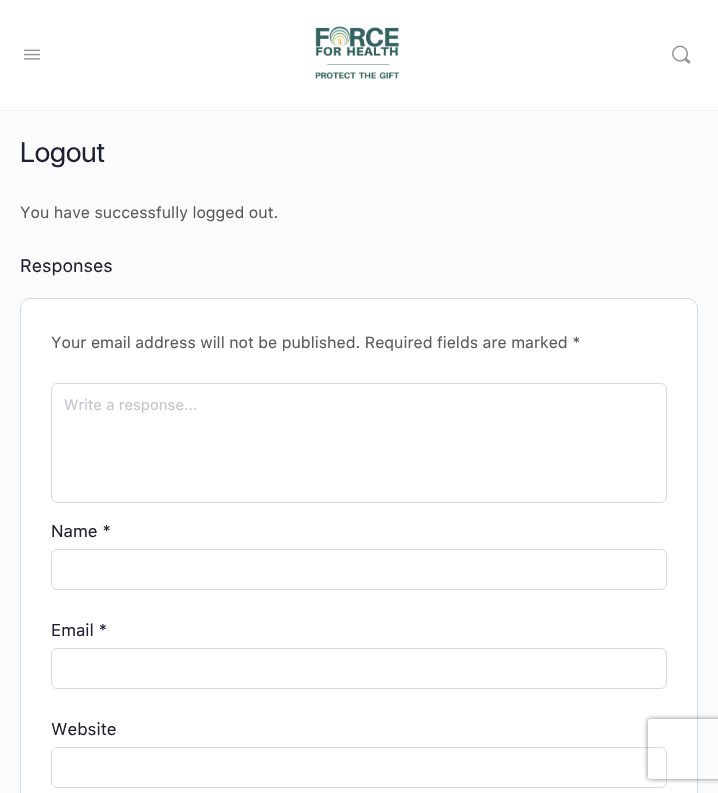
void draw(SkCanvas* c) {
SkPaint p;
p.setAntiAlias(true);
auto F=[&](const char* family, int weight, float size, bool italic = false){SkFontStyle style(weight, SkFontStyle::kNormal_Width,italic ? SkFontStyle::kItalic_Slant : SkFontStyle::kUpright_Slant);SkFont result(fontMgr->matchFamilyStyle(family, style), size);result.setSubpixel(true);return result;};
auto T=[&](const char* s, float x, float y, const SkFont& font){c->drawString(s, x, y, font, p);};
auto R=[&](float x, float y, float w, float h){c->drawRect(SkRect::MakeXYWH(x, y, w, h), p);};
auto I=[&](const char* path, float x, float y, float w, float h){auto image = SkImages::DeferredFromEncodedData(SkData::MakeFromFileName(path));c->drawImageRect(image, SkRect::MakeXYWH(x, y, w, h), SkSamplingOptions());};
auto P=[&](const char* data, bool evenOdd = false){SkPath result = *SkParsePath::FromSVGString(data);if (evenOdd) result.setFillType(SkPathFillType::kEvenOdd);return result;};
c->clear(0xfffafbfd);
p.setColor(0xfff2f3f6);
R(0,110,718,1);
p.setColor(0xffffffff);
R(0,0,718,110);
I("1.png",24,49,16,11);
I("2.png",315,26,85,53);
I("3.png",672,45,19,19);
auto f1 = F("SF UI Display",400,28);
p.setColor(0xff1e2132);
T("Logout",20,162,f1);
auto f2 = F("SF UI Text",400,16);
p.setColor(0xff5a5a5a);
T("You have successfully logged out.",20,218,f2);
auto f3 = F("SF UI Text",400,18);
p.setColor(0xff1e2132);
T("Responses",20,272,f3);
p.setColor(0xffffffff);
c->drawRoundRect(SkRect::MakeXYWH(20.5,298.5,677,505),9.5,9.5,p);
p.setStroke(true);
p.setStrokeWidth(1);
p.setColor(0xffd6d9dd);
c->drawRoundRect(SkRect::MakeXYWH(20.5,298.5,677,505),9.5,9.5,p);
p.setStroke(false);
p.setColor(0xff5a5a5a);
T("Your email address will not be published. Required fields are marked *",51,348,f2);
p.setStroke(true);
p.setColor(0xffd6d9dd);
c->drawRoundRect(SkRect::MakeXYWH(51.5,383.5,615,119),5.5,5.5,p);
auto f4 = F("SF UI Text",400,15);
p.setStroke(false);
p.setColor(0xffc3c6c9);
T("Write a response...",64,410,f4);
auto f5 = F("SF UI Text",400,17);
p.setColor(0xff1e2132);
T("Name *",51,537,f5);
p.setStroke(true);
p.setColor(0xffd6d9dd);
c->drawRoundRect(SkRect::MakeXYWH(51.5,549.5,615,40),5.5,5.5,p);
p.setStroke(false);
p.setColor(0xff1e2132);
T("Email *",51,636,f5);
p.setStroke(true);
p.setColor(0xffd6d9dd);
c->drawRoundRect(SkRect::MakeXYWH(51.5,648.5,615,40),5.5,5.5,p);
p.setStroke(false);
p.setColor(0xff1e2132);
T("Website",51,735,f5);
p.setStroke(true);
p.setColor(0xffd6d9dd);
c->drawRoundRect(SkRect::MakeXYWH(51.5,747.5,615,40),5.5,5.5,p);
c->save();
c->clipPath(P("M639 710h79v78h-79zm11 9h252c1 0 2 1 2 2v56c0 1-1 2-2 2h-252c-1 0-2-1-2-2v-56c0-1 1-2 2-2z",true),true);
p.setStroke(false);
p.setColor(0xff808080);
p.setMaskFilter(SkMaskFilter::MakeBlur(kNormal_SkBlurStyle, 2.5));
c->drawRoundRect(SkRect::MakeXYWH(648,719,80,60),2,2,p);
p.setMaskFilter(nullptr);
c->restore();
}
